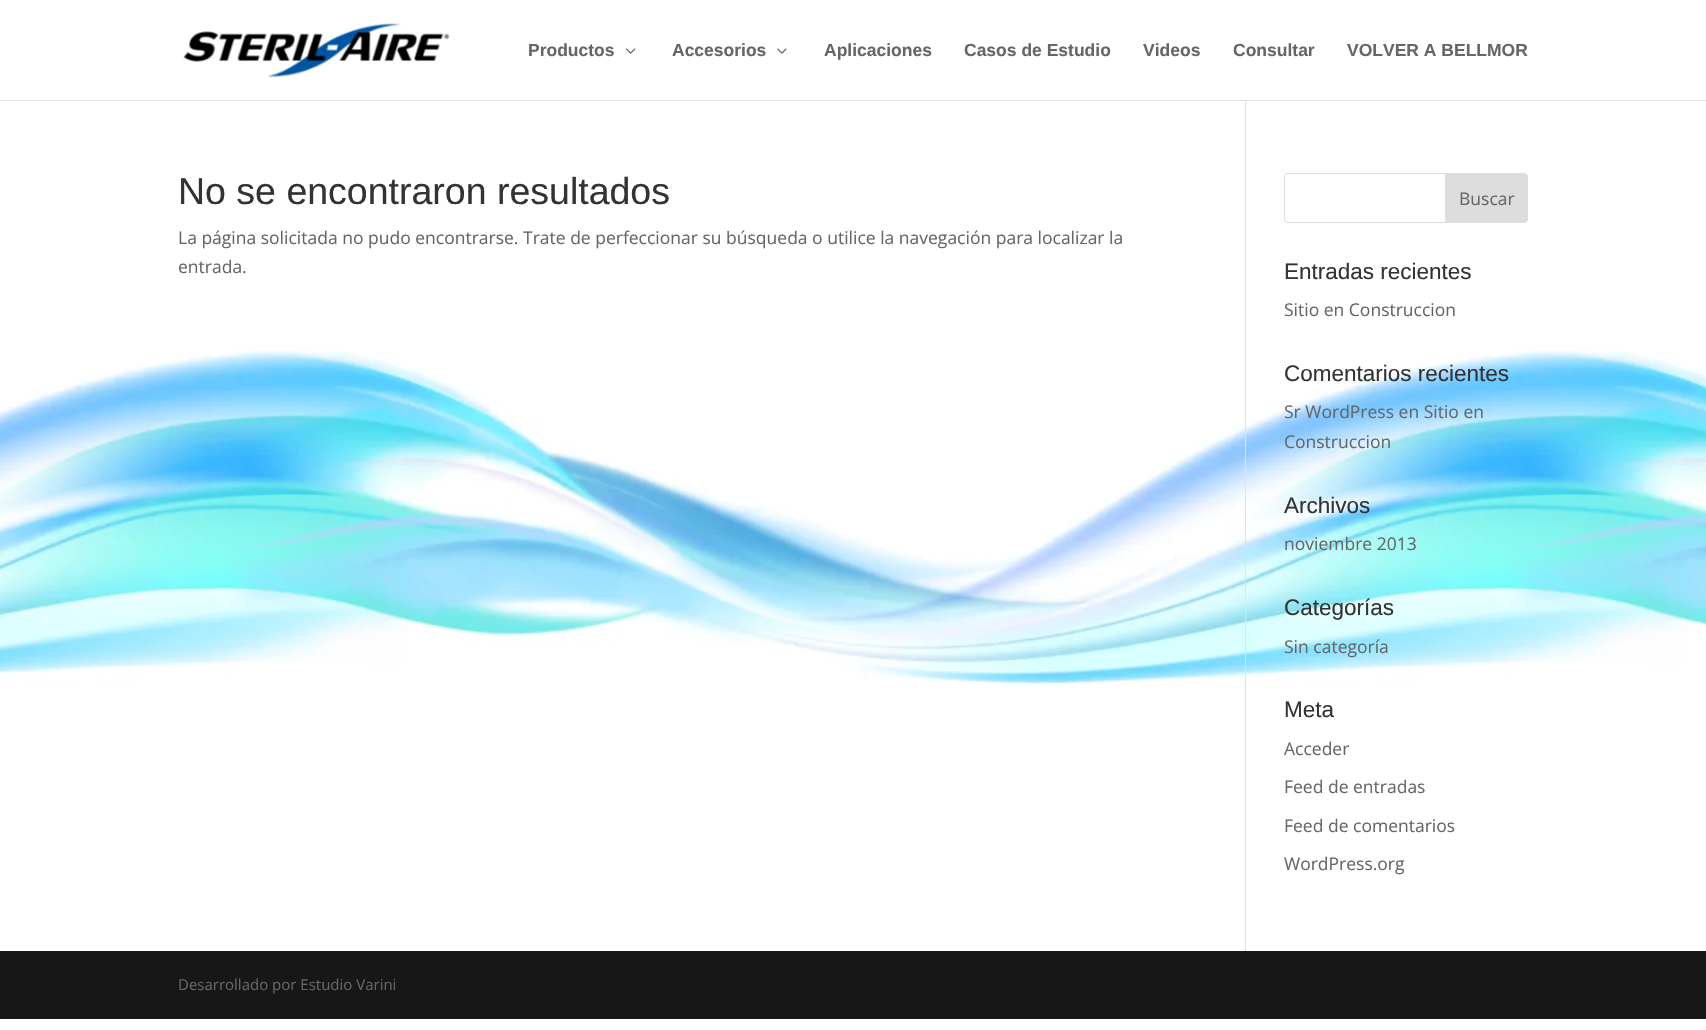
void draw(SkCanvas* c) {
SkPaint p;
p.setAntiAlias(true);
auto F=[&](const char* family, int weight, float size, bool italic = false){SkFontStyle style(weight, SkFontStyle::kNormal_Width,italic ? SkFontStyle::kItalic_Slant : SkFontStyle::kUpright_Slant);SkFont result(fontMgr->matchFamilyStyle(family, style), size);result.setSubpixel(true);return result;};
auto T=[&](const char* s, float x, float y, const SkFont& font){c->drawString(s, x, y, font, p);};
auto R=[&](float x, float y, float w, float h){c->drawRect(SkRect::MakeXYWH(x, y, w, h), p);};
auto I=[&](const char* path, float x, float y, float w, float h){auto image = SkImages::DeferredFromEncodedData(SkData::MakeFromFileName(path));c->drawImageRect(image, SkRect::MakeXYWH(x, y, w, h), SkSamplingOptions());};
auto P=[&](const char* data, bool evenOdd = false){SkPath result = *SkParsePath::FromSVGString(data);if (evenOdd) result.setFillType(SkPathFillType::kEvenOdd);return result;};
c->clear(0xffffffff);
p.setColor(0xffe6e6e6);
R(0,100,1706,1);
I("1.png",183,23,267,55);
auto f1 = F("Liberation Sans",700,17.5);
p.setColor(0xff666666);
T("Productos",528,56,f1);
I("2.png",626,48,10,6);
T("Accesorios",672,56,f1);
I("3.png",777,48,10,6);
T("Aplicaciones",824,56,f1);
T("Casos de Estudio",964,56,f1);
T("Videos",1143,56,f1);
T("Consultar",1233,56,f1);
T("VOLVER A BELLMOR",1347,56,f1);
I("4.png",0,350,1706,335);
p.setColor(0xffe2e2e2);
R(1245,100,1,851);
p.setColor(0xffcbcbcb);
R(1245,100,1,1);
auto f2 = F("Liberation Sans",400,37.5);
p.setColor(0xff333333);
T("No se encontraron resultados",178,204,f2);
auto f3 = F("Open Sans",400,17.5);
p.setColor(0xff666666);
T("La página solicitada no pudo encontrarse. Trate de perfeccionar su búsqueda o utilice la navegación para localizar la",178,244,f3);
T("entrada.",178,273,f3);
p.setStroke(true);
p.setStrokeWidth(1);
p.setColor(0xffdddddd);
c->drawRoundRect(SkRect::MakeXYWH(1284.5,173.5,243,49),3.5,3.5,p);
p.setStroke(false);
c->drawPath(P("M1445.5 173.5h78.5c2 0 3.5 1.5 3.5 3.5v42c0 2-1.5 3.5-3.5 3.5h-78.5z"),p);
p.setStroke(true);
c->drawPath(P("M1445.5 173.5h78.5c2 0 3.5 1.5 3.5 3.5v42c0 2-1.5 3.5-3.5 3.5h-78.5z"),p);
p.setStroke(false);
p.setColor(0xff666666);
T("Buscar",1459,205,f3);
auto f4 = F("Liberation Sans",400,22.5);
p.setColor(0xff333333);
T("Entradas recientes",1284,279,f4);
p.setColor(0xff666666);
T("Sitio en Construccion",1284,316,f3);
p.setColor(0xff333333);
T("Comentarios recientes",1284,381,f4);
p.setColor(0xff666666);
T("Sr WordPress en Sitio en",1284,418,f3);
T("Construccion",1284,448,f3);
p.setColor(0xff333333);
T("Archivos",1284,513,f4);
p.setColor(0xff666666);
T("noviembre 2013",1284,550,f3);
p.setColor(0xff333333);
T("Categorías",1284,615,f4);
p.setColor(0xff666666);
T("Sin categoría",1284,653,f3);
p.setColor(0xff333333);
T("Meta",1284,717,f4);
p.setColor(0xff666666);
T("Acceder",1284,755,f3);
T("Feed de entradas",1284,793,f3);
T("Feed de comentarios",1284,832,f3);
T("WordPress.org",1284,870,f3);
p.setColor(0xff171717);
R(0,951,1706,68);
auto f5 = F("Open Sans",400,15);
p.setColor(0xff666666);
T("Desarrollado por Estudio Varini",178,990,f5);
}
